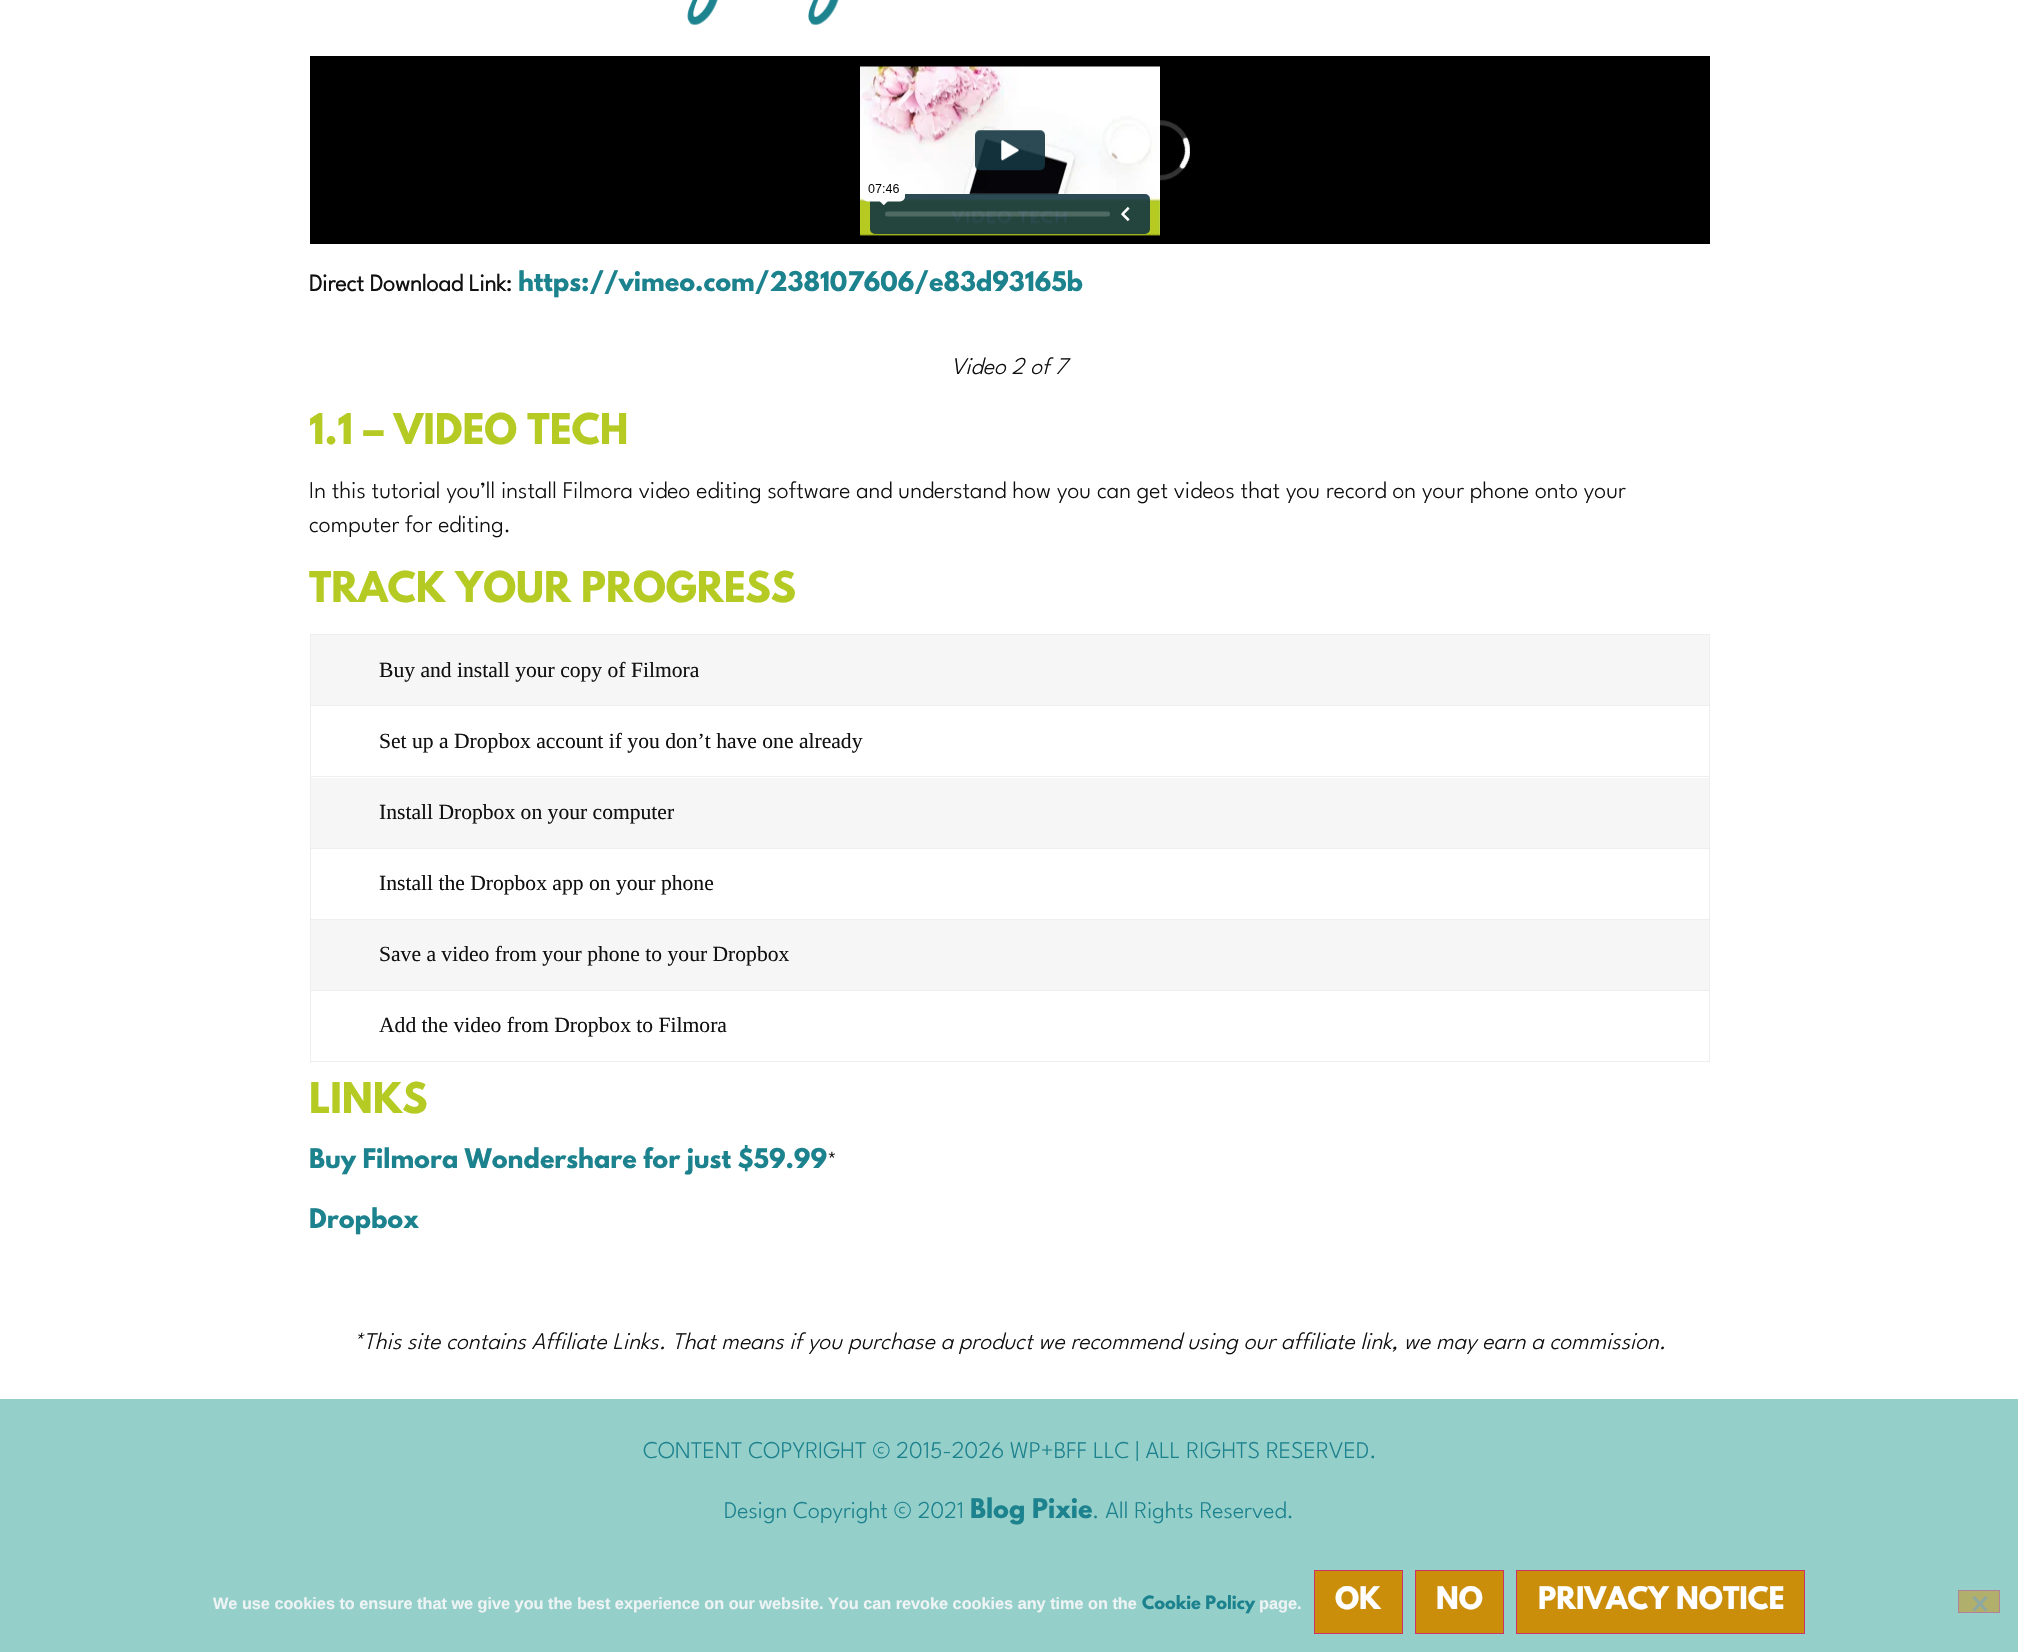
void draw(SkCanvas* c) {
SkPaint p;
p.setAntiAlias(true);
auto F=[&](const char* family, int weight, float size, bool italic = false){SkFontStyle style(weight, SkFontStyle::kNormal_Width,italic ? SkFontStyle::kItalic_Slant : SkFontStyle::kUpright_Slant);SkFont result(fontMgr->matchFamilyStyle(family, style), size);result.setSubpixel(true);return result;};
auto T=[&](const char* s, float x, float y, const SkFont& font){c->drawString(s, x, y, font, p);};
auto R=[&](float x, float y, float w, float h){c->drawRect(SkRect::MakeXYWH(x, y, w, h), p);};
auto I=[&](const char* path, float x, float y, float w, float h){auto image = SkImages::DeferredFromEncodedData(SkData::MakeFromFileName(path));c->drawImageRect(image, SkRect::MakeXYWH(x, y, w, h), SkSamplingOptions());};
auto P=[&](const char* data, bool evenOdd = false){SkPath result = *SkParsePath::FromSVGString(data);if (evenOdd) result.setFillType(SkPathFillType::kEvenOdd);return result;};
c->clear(0xffffffff);
I("1.png",687,0,152,25);
p.setColor(0xff000000);
R(310,56,1400,188);
I("2.png",860,66,330,170);
auto f1 = F("League Spartan",700,24);
p.setColor(0xff111111);
T("Direct Download Link:",309,291,f1);
auto f2 = F("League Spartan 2",700,24);
p.setColor(0xff1c828e);
T("https://vimeo.com/238107606/e83d93165b",518,291,f2);
auto f3 = F("League Spartan",300,24,true);
p.setColor(0xff111111);
T("Video 2 of 7",951,374,f3);
auto f4 = F("League Spartan 2",700,37.5);
p.setColor(0xffb5cb23);
T("1.1 – VIDEO TECH",309,444,f4);
auto f5 = F("League Spartan",300,24);
p.setColor(0xff111111);
T("In this tutorial you’ll install Filmora video editing software and understand how you can get videos that you record on your phone onto your",309,498,f5);
T("computer for editing.",309,532,f5);
p.setColor(0xffb5cb23);
T("TRACK YOUR PROGRESS",309,602,f4);
p.setColor(0xffeeeeee);
R(310,634,1400,1);
R(310,705,1400,1);
R(310,776,1400,1);
R(310,848,1400,1);
R(310,919,1400,1);
R(310,990,1400,1);
R(1709,990,1,73);
R(1709,919,1,72);
R(1709,848,1,72);
R(1709,776,1,73);
R(1709,705,1,73);
R(1709,634,1,72);
R(310,1061,1400,1);
R(310,990,1,73);
R(310,919,1,72);
R(310,848,1,72);
R(310,776,1,73);
R(310,705,1,73);
R(310,634,1,72);
p.setColor(0xfff6f6f6);
R(311,635,1398,70);
auto f6 = F("Liberation Serif",400,21.6);
p.setColor(0xff111111);
T("Buy and install your copy of Filmora",379,677,f6);
T("Set up a Dropbox account if you don’t have one already",379,748,f6);
p.setColor(0xfff6f6f6);
R(311,778,1398,70);
p.setColor(0xff111111);
T("Install Dropbox on your computer",379,819,f6);
T("Install the Dropbox app on your phone",379,890,f6);
p.setColor(0xfff6f6f6);
R(311,920,1398,70);
p.setColor(0xff111111);
T("Save a video from your phone to your Dropbox",379,961,f6);
T("Add the video from Dropbox to Filmora",379,1032,f6);
p.setColor(0xffb5cb23);
T("LINKS",309,1113,f4);
p.setColor(0xff1c828e);
T("Buy Filmora Wondershare for just $59.99",309,1168,f2);
p.setColor(0xff111111);
T("*",827,1168,f5);
p.setColor(0xff1c828e);
T("Dropbox",309,1228,f2);
p.setColor(0xff111111);
T("*This site contains Affiliate Links. That means if you purchase a product we recommend using our affiliate link, we may earn a commission.",353,1349,f3);
p.setColor(0xff95cfca);
R(0,1399,2018,253);
p.setColor(0xff1c828e);
T("CONTENT COPYRIGHT © 2015-2026 WP+BFF LLC | ALL RIGHTS RESERVED.",643,1458,f5);
T("Design Copyright © 2021",724,1518,f5);
T("Blog Pixie",970,1518,f2);
T(". All Rights Reserved.",1092,1518,f5);
auto f7 = F("Liberation Sans",700,16.25);
p.setColor(0xffeef3f4);
T("We use cookies to ensure that we give you the best experience on our website. You can revoke cookies any time on the",213,1609,f7);
auto f8 = F("League Spartan 2",700,16.25);
p.setColor(0xff1c828e);
T("Cookie Policy",1142,1609,f8);
p.setColor(0xffeef3f4);
T("page.",1259,1609,f7);
p.setColor(0xffcb8e0b);
c->drawRect(SkRect::MakeXYWH(1314.5,1570.5,88,63),p);
p.setStroke(true);
p.setStrokeWidth(1);
p.setColor(0xffcc3366);
c->drawRect(SkRect::MakeXYWH(1314.5,1570.5,88,63),p);
auto f9 = F("League Spartan 2",700,27.5);
p.setStroke(false);
p.setColor(0xffffffff);
T("OK",1335,1609,f9);
p.setColor(0xffcb8e0b);
c->drawRect(SkRect::MakeXYWH(1415.5,1570.5,88,63),p);
p.setStroke(true);
p.setColor(0xffcc3366);
c->drawRect(SkRect::MakeXYWH(1415.5,1570.5,88,63),p);
p.setStroke(false);
p.setColor(0xffffffff);
T("NO",1436,1609,f9);
p.setColor(0xffcb8e0b);
c->drawRect(SkRect::MakeXYWH(1516.5,1570.5,288,63),p);
p.setStroke(true);
p.setColor(0xffcc3366);
c->drawRect(SkRect::MakeXYWH(1516.5,1570.5,288,63),p);
p.setStroke(false);
p.setColor(0xffffffff);
T("PRIVACY NOTICE",1538,1609,f9);
p.setColor(0xffb0af6b);
c->drawRect(SkRect::MakeXYWH(1958.5,1590.5,41,22),p);
p.setStroke(true);
p.setColor(0xffb18198);
c->drawRect(SkRect::MakeXYWH(1958.5,1590.5,41,22),p);
p.setStroke(false);
p.setColor(0xff8ba8a5);
c->drawPath(P("M1985.5 1596l2 2l-13 13.5l-2-2z"),p);
c->drawPath(P("M1972.5 1598l2-2l13 13.5l-2 2z"),p);
}
